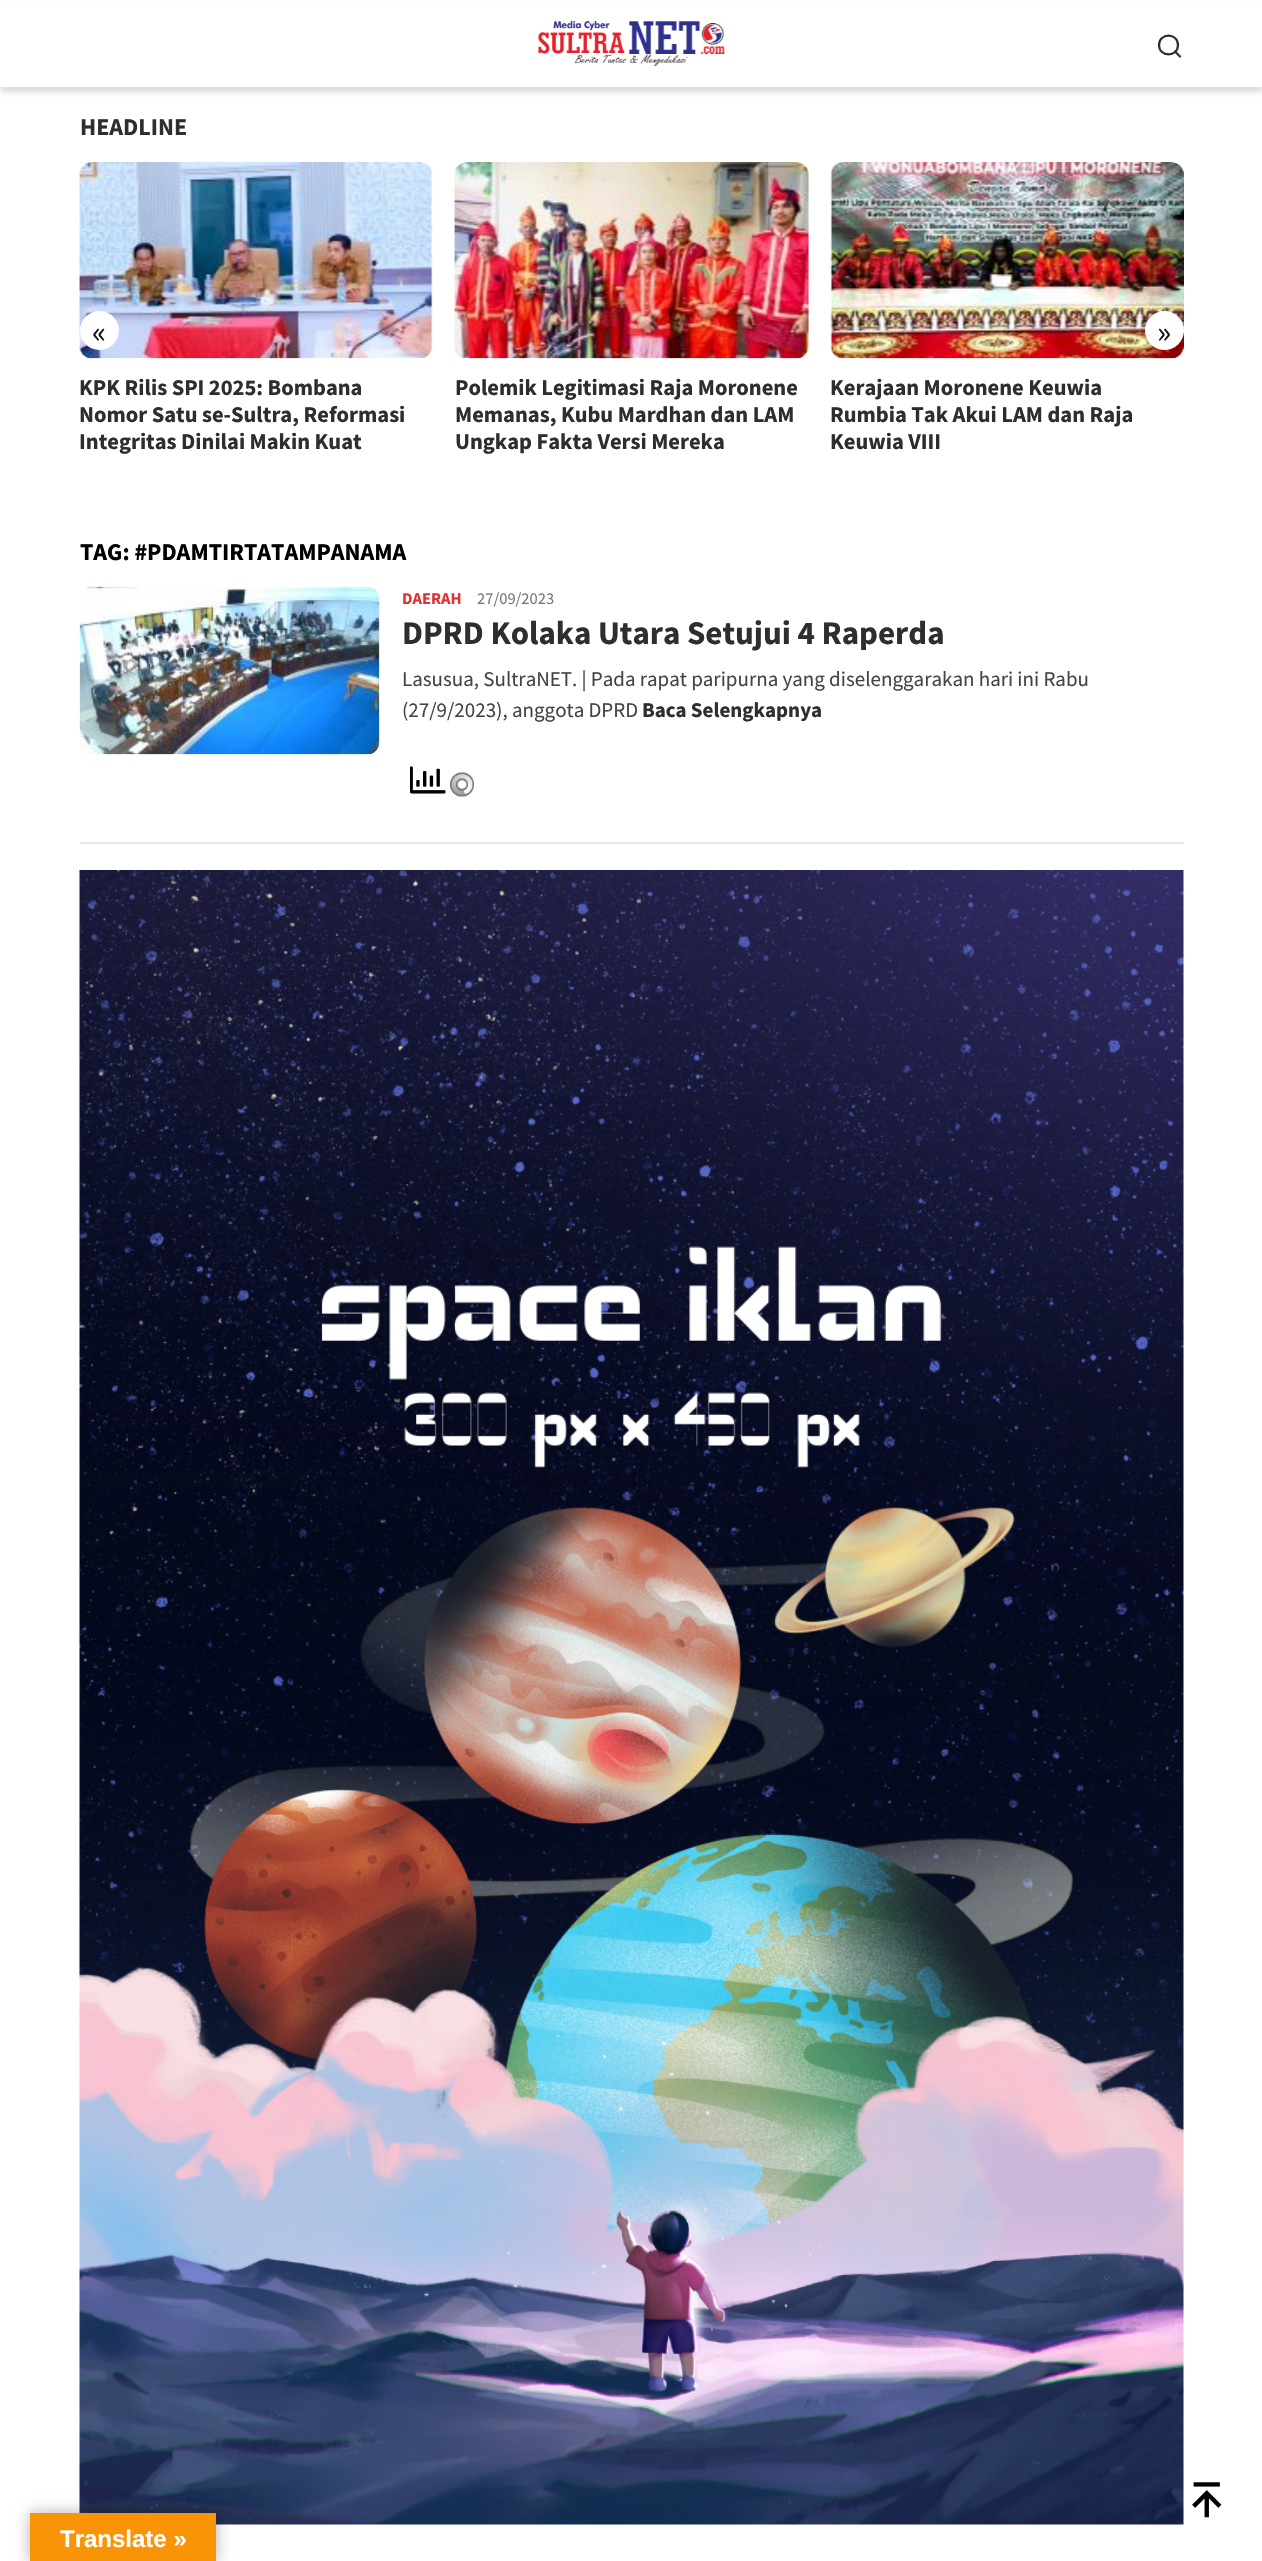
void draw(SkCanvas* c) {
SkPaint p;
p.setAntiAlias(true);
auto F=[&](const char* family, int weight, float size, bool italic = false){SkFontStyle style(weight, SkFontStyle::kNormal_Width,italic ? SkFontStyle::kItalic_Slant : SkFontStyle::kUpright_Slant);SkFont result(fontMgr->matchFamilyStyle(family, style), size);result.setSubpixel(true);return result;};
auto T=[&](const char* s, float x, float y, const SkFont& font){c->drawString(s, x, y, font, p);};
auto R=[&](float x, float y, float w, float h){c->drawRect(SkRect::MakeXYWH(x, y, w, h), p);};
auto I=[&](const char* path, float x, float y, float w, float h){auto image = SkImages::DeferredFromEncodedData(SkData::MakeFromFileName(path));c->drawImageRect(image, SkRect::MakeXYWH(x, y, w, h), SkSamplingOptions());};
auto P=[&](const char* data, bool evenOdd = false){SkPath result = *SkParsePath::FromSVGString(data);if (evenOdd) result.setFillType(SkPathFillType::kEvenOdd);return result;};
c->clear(0xffffffff);
p.setColor(0x2e343434);
p.setMaskFilter(SkMaskFilter::MakeBlur(kNormal_SkBlurStyle, 3));
c->drawRect(SkRect::MakeXYWH(0,5,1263,87),p);
p.setMaskFilter(nullptr);
p.setColor(0xffffffff);
R(0,1,1262,86);
I("1.png",538,21,187,45);
p.setStroke(true);
p.setStrokeWidth(2.2);
p.setStrokeCap(SkPaint::kRound_Cap);
p.setColor(0xff2e2e2e);
c->drawPath(P("M1180 56.5l-5-5m3-6.5c0 12.5-19 12.5-19 0c0-12.5 19-12.5 19 0z"),p);
auto f1 = F("Source Sans Pro",700,24);
p.setStroke(false);
T("HEADLINE",80,135,f1);
I("2.png",79,162,354,197);
p.setColor(0xffffffff);
c->drawCircle(99.5,330.5,19.5,p);
auto f2 = F("Source Sans Pro",400,33);
p.setColor(0xff111111);
T("«",92,343,f2);
I("4.png",830,162,354,197);
p.setColor(0xffffffff);
c->drawCircle(1164.5,330.5,19.5,p);
p.setColor(0xff111111);
T("»",1157,343,f2);
auto f3 = F("Source Sans Pro",700,22.5);
p.setColor(0xff2e2e2e);
T("KPK Rilis SPI 2025: Bombana",79,395,f3);
T("Nomor Satu se-Sultra, Reformasi",79,422,f3);
T("Integritas Dinilai Makin Kuat",79,449,f3);
I("3.png",454,162,355,197);
T("Polemik Legitimasi Raja Moronene",455,395,f3);
T("Memanas, Kubu Mardhan dan LAM",455,422,f3);
T("Ungkap Fakta Versi Mereka",455,449,f3);
T("Kerajaan Moronene Keuwia",830,395,f3);
T("Rumbia Tak Akui LAM dan Raja",830,422,f3);
T("Keuwia VIII",830,449,f3);
p.setColor(0xff000000);
T("TAG: #PDAMTIRTATAMPANAMA",80,560,f1);
p.setColor(0xffe5e5e5);
R(80,842,1104,2);
I("5.png",79,586,301,169);
auto f4 = F("Source Sans Pro",700,16.5);
p.setColor(0xffdd3333);
T("DAERAH",402,604,f4);
auto f5 = F("Source Sans Pro",400,16.5);
p.setColor(0xff787878);
T("27/09/2023",477,604,f5);
auto f6 = F("Source Sans Pro",700,33);
p.setColor(0xff2e2e2e);
T("DPRD Kolaka Utara Setujui 4 Raperda",402,644,f6);
auto f7 = F("Source Sans Pro",400,21);
p.setColor(0xff444444);
T("Lasusua, SultraNET. | Pada rapat paripurna yang diselenggarakan hari ini Rabu",402,686,f7);
T("(27/9/2023), anggota DPRD",402,717,f7);
auto f8 = F("Source Sans Pro",700,21);
p.setColor(0xff2e2e2e);
T("Baca Selengkapnya",642,717,f8);
I("6.png",410,766,36,28);
I("7.png",450,772,24,25);
I("8.png",79,870,1105,1655);
I("9.png",1192,2482,30,36);
p.setColor(0x4d000000);
p.setMaskFilter(SkMaskFilter::MakeBlur(kNormal_SkBlurStyle, 7));
c->drawRect(SkRect::MakeXYWH(30,2513,186,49),p);
p.setMaskFilter(nullptr);
p.setColor(0xfff89406);
R(30,2513,186,48);
auto f9 = F("Liberation Sans",700,24);
p.setColor(0xffffffff);
T("Translate »",60,2547,f9);
}
